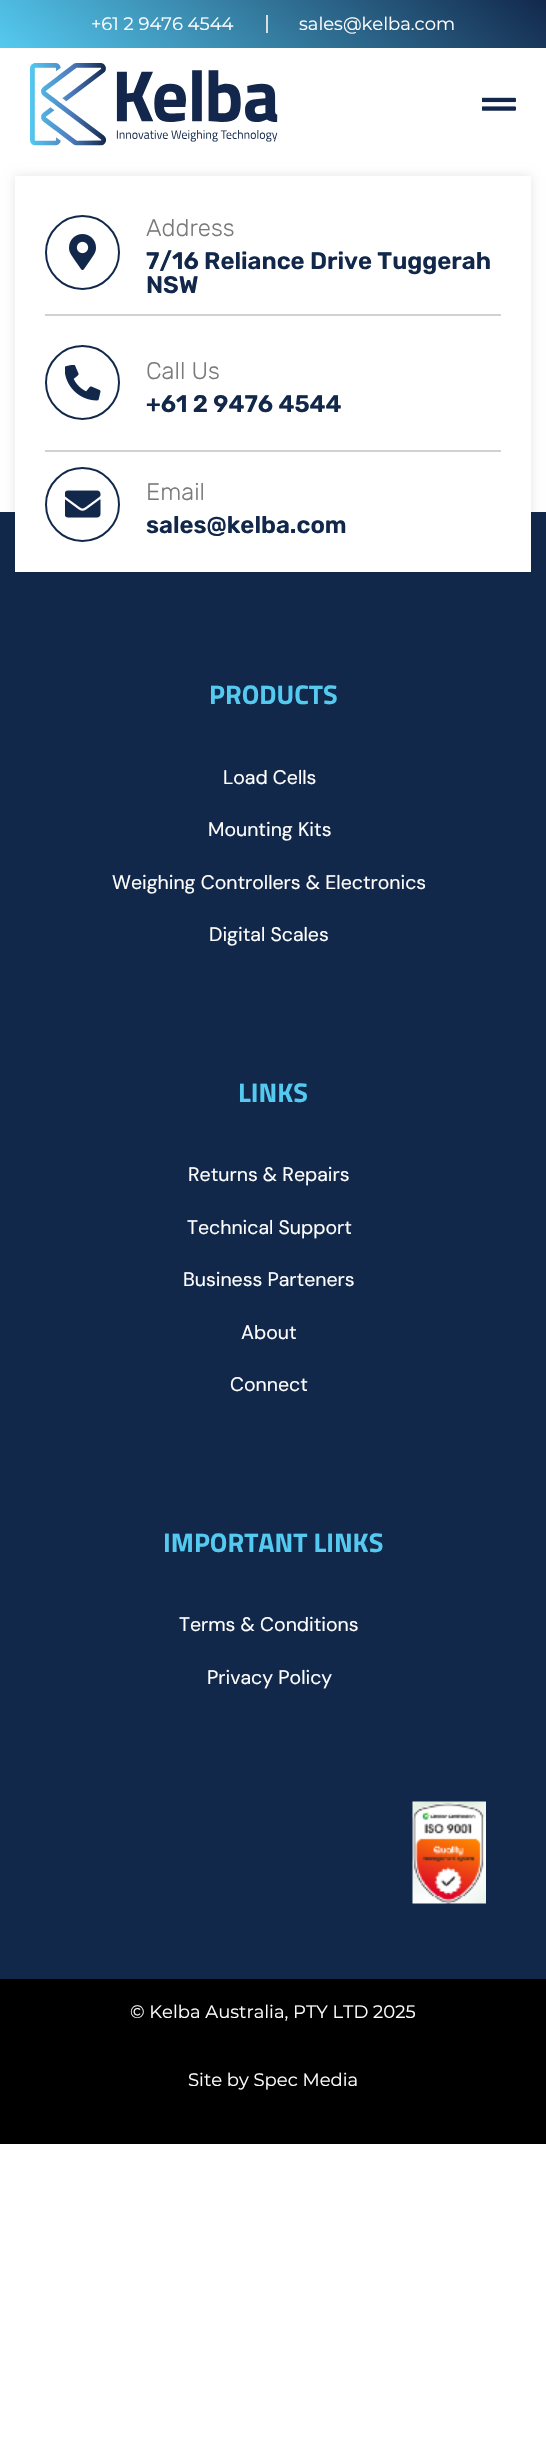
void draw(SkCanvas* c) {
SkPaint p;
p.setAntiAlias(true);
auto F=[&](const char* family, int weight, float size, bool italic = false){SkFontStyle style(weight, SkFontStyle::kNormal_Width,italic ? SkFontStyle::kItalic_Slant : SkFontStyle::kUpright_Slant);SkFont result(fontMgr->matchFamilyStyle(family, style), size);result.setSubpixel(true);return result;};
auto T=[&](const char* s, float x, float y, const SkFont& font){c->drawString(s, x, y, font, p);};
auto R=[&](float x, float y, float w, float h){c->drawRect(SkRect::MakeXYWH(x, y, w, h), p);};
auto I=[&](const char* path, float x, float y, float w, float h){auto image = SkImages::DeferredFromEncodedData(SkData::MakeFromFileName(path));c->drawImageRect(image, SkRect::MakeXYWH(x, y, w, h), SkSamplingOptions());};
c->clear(0xffffffff);
{
const SkColor colors[] = {0xff12284b,0xff55caf0};
const float stops[] = {0,1};
const SkPoint ends[] = {{398,-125}, {148,173}};
p.setShader(SkGradientShader::MakeLinear(ends, colors, stops, 2, SkTileMode::kClamp));
p.setAlpha(255);
}
R(0,0,546,48);
auto f1 = F("Montserrat",400,18);
p.setShader(nullptr);
p.setColor(0xffffffff);
T("+61 2 9476 4544",91,30,f1);
p.setColor(0xffdddddd);
R(266,15,2,18);
p.setColor(0xffffffff);
T("sales@kelba.com",299,30,f1);
I("1.png",30,63,248,83);
I("2.png",482,97,34,14);
p.setColor(0xff12284b);
R(0,512,546,1467);
p.setColor(0x1a000000);
p.setMaskFilter(SkMaskFilter::MakeBlur(kNormal_SkBlurStyle, 5));
c->drawRect(SkRect::MakeXYWH(15,176,516,396),p);
p.setMaskFilter(nullptr);
p.setColor(0xffffffff);
R(15,176,516,396);
p.setColor(0xffd1d1d1);
R(45,314,456,2);
p.setStroke(true);
p.setStrokeWidth(2);
p.setColor(0xff12284b);
c->drawCircle(82.5,252.5,36.5,p);
I("3.png",69,234,27,36);
auto f2 = F("Rubik",300,24);
p.setStroke(false);
p.setColor(0xff7a7a7a);
T("Address",146,236,f2);
auto f3 = F("Rubik",600,24);
p.setColor(0xff12284b);
T("7/16 Reliance Drive Tuggerah",146,269,f3);
T("NSW",146,293,f3);
p.setStroke(true);
c->drawCircle(82.5,382.5,36.5,p);
I("4.png",65,365,36,36);
p.setStroke(false);
p.setColor(0xff7a7a7a);
T("Call Us",146,379,f2);
p.setColor(0xff12284b);
T("+61 2 9476 4544",146,412,f3);
p.setColor(0xffd1d1d1);
R(45,450,456,2);
p.setStroke(true);
p.setColor(0xff12284b);
c->drawCircle(82.5,504.5,36.5,p);
I("5.png",65,490,36,28);
p.setStroke(false);
p.setColor(0xff7a7a7a);
T("Email",146,500,f2);
p.setColor(0xff12284b);
T("sales@kelba.com",146,533,f3);
auto f4 = F("Titillium Web",700,27);
p.setColor(0xff55caf0);
T("PRODUCTS",209,704,f4);
auto f5 = F("DM Sans",400,19.5);
p.setColor(0xffffffff);
T("Load Cells",223,784,f5);
T("Mounting Kits",208,836,f5);
T("Weighing Controllers & Electronics",112,889,f5);
T("Digital Scales",209,941,f5);
p.setColor(0xff55caf0);
T("LINKS",238,1102,f4);
p.setColor(0xffffffff);
T("Returns & Repairs",188,1181,f5);
T("Technical Support",187,1234,f5);
T("Business Parteners",183,1286,f5);
T("About",241,1339,f5);
T("Connect",230,1391,f5);
p.setColor(0xff55caf0);
T("IMPORTANT LINKS",163,1552,f4);
p.setColor(0xffffffff);
T("Terms & Conditions",179,1631,f5);
T("Privacy Policy",207,1684,f5);
I("6.png",412,1801,74,103);
p.setColor(0xff000000);
R(0,1979,546,165);
p.setColor(0xffffffff);
T("© Kelba Australia, PTY LTD 2025",130,2018,f1);
T("Site by Spec Media",188,2086,f1);
}
